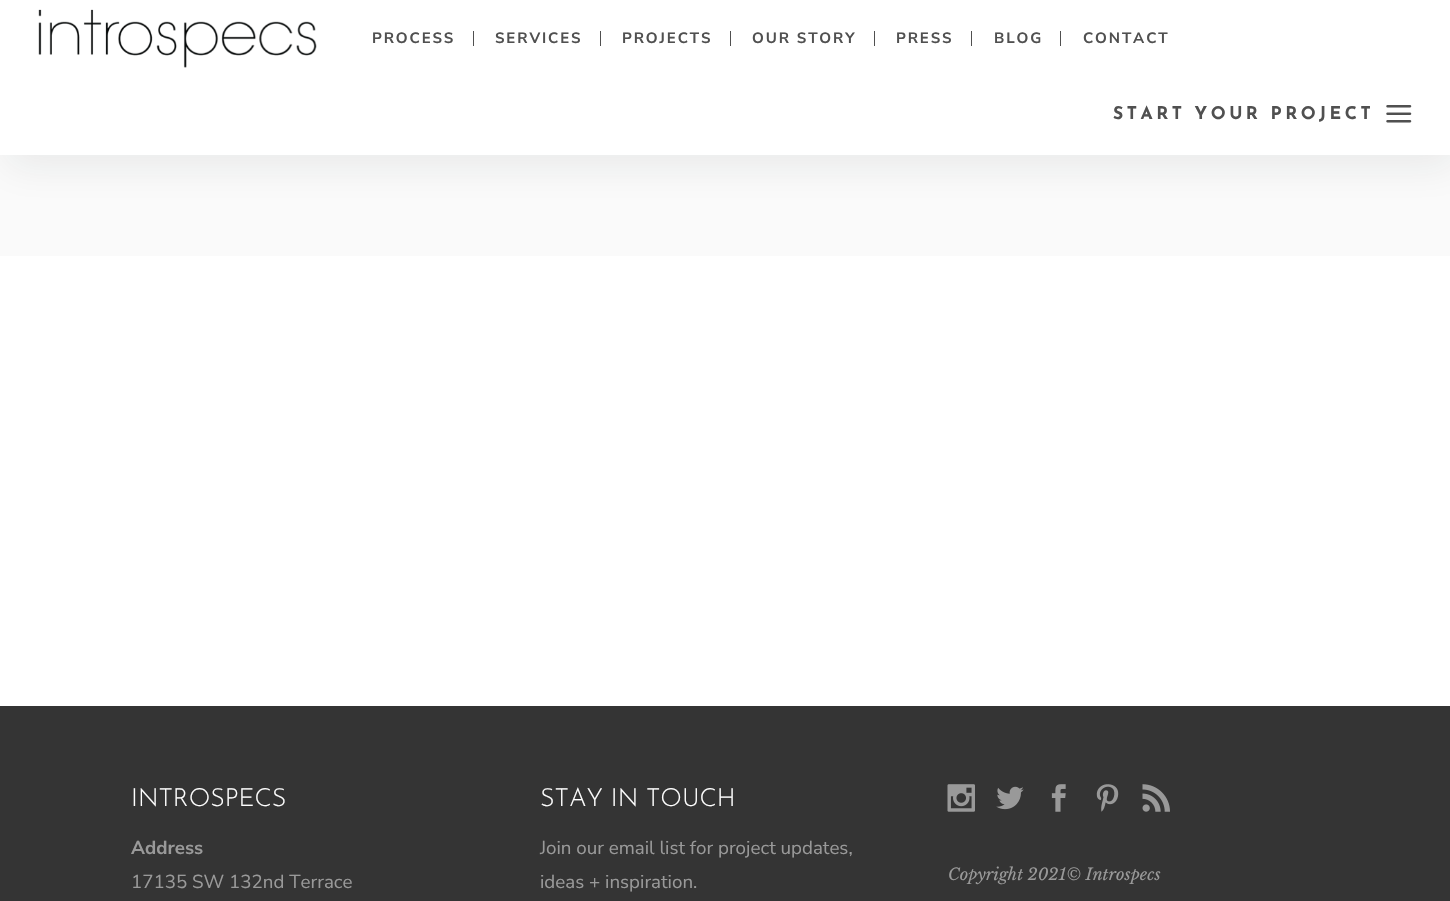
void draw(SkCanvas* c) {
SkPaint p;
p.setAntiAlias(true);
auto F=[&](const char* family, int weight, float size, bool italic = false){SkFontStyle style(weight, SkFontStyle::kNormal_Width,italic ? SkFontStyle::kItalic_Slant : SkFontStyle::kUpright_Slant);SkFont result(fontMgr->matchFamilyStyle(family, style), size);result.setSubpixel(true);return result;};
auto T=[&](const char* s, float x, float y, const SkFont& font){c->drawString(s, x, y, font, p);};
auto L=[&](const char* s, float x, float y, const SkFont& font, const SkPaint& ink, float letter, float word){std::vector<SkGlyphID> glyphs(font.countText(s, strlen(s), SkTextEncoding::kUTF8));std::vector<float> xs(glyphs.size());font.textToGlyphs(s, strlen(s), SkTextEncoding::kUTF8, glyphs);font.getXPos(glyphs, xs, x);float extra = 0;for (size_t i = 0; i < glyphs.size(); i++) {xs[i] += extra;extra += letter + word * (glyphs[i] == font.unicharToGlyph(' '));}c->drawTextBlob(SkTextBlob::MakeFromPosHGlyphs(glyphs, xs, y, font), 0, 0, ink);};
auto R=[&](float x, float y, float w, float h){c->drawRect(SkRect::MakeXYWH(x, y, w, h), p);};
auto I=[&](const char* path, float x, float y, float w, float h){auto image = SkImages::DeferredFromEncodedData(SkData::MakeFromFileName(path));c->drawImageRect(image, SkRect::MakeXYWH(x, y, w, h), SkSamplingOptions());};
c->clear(0xffffffff);
p.setColor(0xfffafafa);
R(0,155,1450,101);
p.setColor(0x141f2325);
p.setMaskFilter(SkMaskFilter::MakeBlur(kNormal_SkBlurStyle, 19));
c->drawRect(SkRect::MakeXYWH(6,11,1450,155),p);
p.setMaskFilter(nullptr);
p.setColor(0xffffffff);
R(0,0,1450,155);
I("1.png",38,9,279,59);
auto f1 = F("Nunito Sans",700,15);
p.setColor(0xff505050);
L("PROCESS",372,43,f1,p,1.9,0);
R(473,31,1,15);
L("SERVICES",495,43,f1,p,1.9,0);
R(600,31,1,15);
L("PROJECTS",622,43,f1,p,1.9,0);
R(730,31,1,15);
L("OUR STORY",752,43,f1,p,1.9,0);
R(874,31,1,15);
L("PRESS",896,43,f1,p,1.9,0);
R(971,31,1,15);
L("BLOG",994,43,f1,p,1.9,0);
R(1060,31,1,15);
L("CONTACT",1083,43,f1,p,1.9,0);
auto f2 = F("Josefin Sans",700,17.5);
L("START YOUR PROJECT",1113,119,f2,p,3.5,0);
I("2.png",1386,105,26,18);
p.setColor(0xff343434);
R(0,706,1450,195);
auto f3 = F("Josefin Sans",300,25);
p.setColor(0xffffffff);
T("INTROSPECS",131,806,f3);
auto f4 = F("Nunito Sans",700,18.75);
p.setColor(0xff999999);
T("Address",131,854,f4);
auto f5 = F("Nunito Sans",400,18.75);
T("17135 SW 132nd Terrace",131,888,f5);
p.setColor(0xffffffff);
T("STAY IN TOUCH",540,806,f3);
p.setColor(0xff999999);
T("Join our email list for project updates,",540,854,f5);
T("ideas + inspiration.",540,888,f5);
I("3.png",947,784,28,28);
I("4.png",996,786,28,24);
I("5.png",1051,784,15,28);
I("6.png",1096,784,23,28);
I("7.png",1142,784,28,28);
auto f6 = F("Libre Baskerville",400,16.25,true);
T("Copyright 2021© Introspecs",948,880,f6);
}
